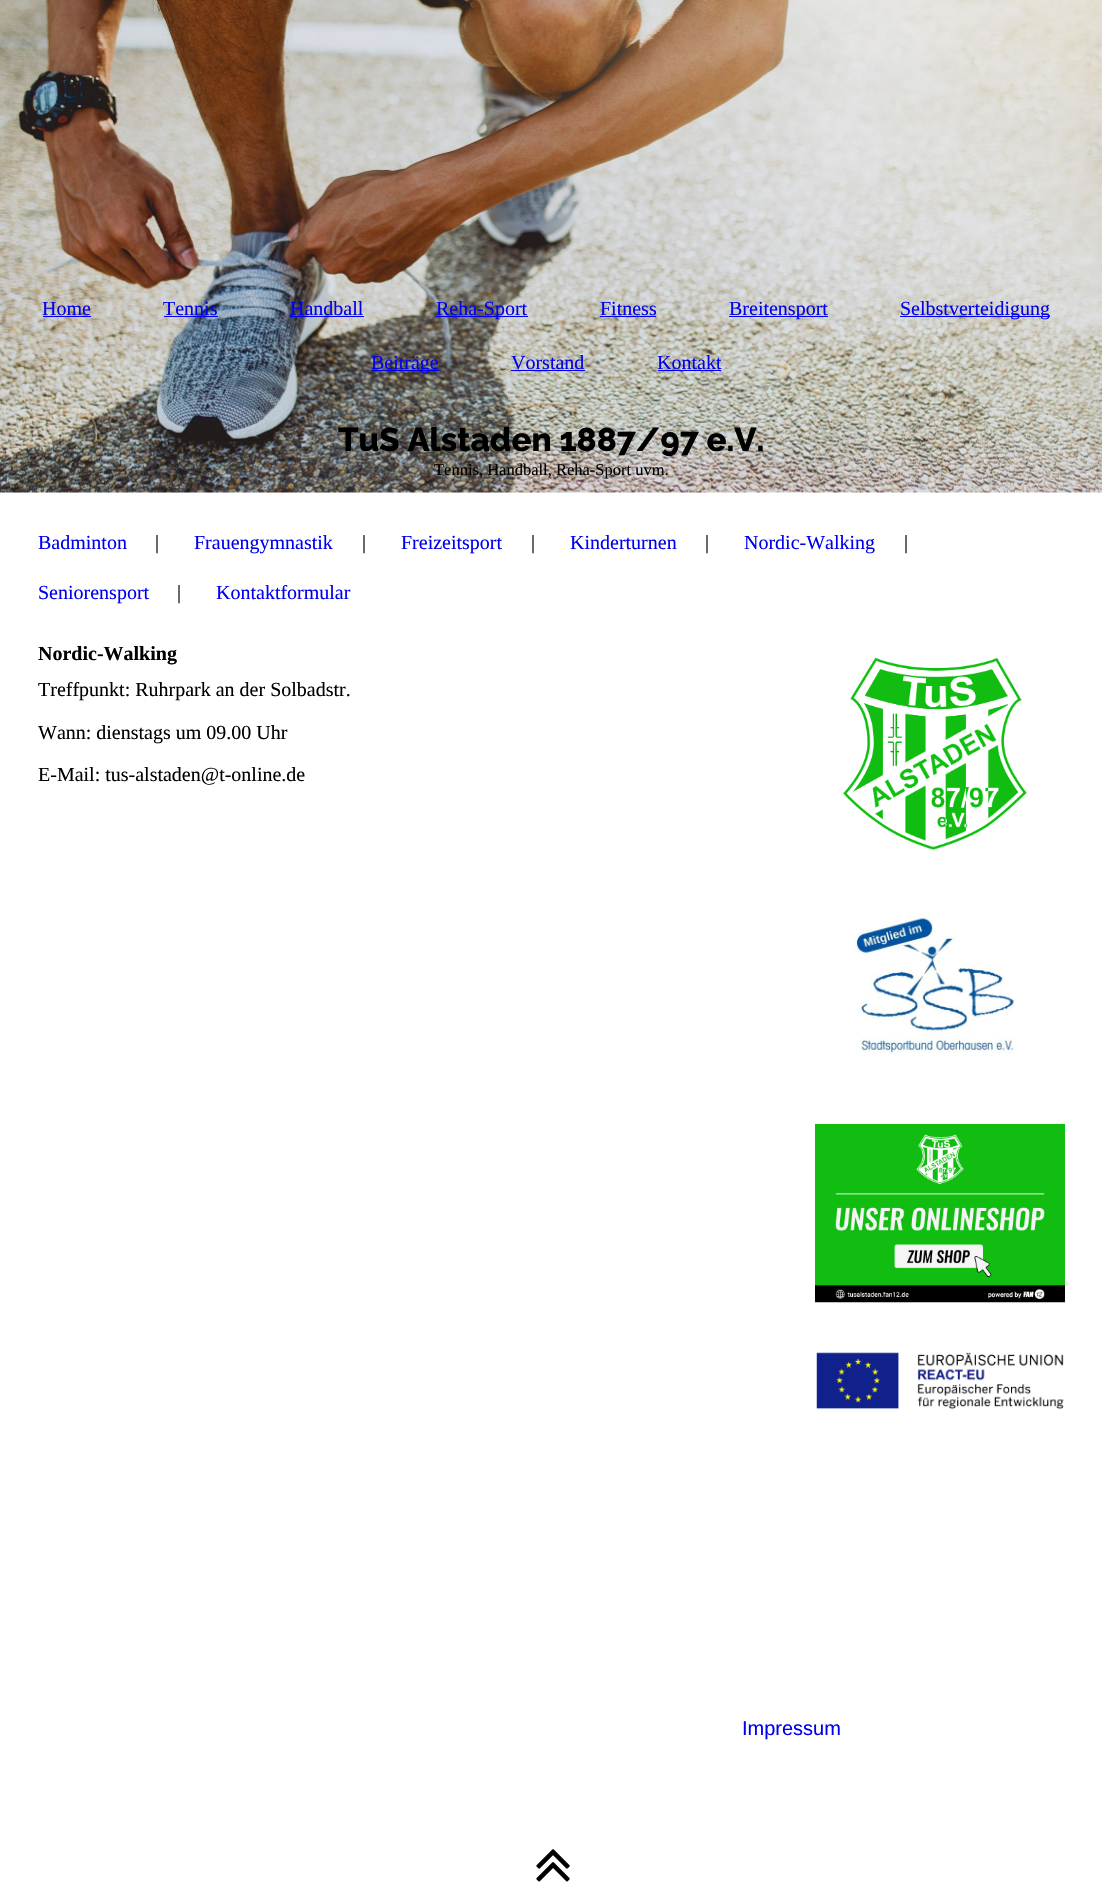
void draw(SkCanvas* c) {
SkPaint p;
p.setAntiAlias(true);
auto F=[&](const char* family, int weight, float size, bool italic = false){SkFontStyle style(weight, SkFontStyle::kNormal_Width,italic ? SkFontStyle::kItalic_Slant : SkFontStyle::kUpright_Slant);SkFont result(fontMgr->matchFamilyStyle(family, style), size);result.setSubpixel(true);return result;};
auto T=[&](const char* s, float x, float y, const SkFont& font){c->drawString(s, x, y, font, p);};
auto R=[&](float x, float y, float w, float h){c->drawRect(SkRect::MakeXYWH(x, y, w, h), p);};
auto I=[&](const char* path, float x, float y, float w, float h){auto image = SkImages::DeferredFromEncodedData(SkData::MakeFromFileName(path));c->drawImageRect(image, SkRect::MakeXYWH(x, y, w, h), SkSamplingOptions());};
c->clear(0xffffffff);
I("1.png",0,0,1102,493);
auto f1 = F("Liberation Serif",400,20);
p.setColor(0xff0000ee);
T("Home",42,315,f1);
R(43,316,48,1);
T("Tennis",163,315,f1);
R(164,316,54,1);
T("Handball",290,315,f1);
R(290,316,74,1);
R(436,316,92,1);
T("Reha-Sport",436,315,f1);
T("Fitness",600,315,f1);
R(600,316,56,1);
R(729,316,99,1);
T("Breitensport",729,315,f1);
R(900,316,150,1);
T("Selbstverteidigung",900,315,f1);
R(371,370,68,1);
T("Beiträge",371,369,f1);
T("Vorstand",511,369,f1);
R(511,370,74,1);
T("Kontakt",657,369,f1);
R(658,370,63,1);
auto f2 = F("Raleway",800,33.1);
p.setColor(0xff000000);
T("TuS Alstaden 1887/97 e.V.",338,451,f2);
auto f3 = F("Liberation Serif",400,16.5);
T("Tennis, Handball, Reha-Sport uvm.",434,475,f3);
p.setColor(0xff0000ee);
T("Badminton",38,549,f1);
p.setColor(0xff000000);
T("|",155,549,f1);
p.setColor(0xff0000ee);
T("Frauengymnastik",194,549,f1);
p.setColor(0xff000000);
T("|",362,549,f1);
p.setColor(0xff0000ee);
T("Freizeitsport",401,549,f1);
p.setColor(0xff000000);
T("|",531,549,f1);
p.setColor(0xff0000ee);
T("Kinderturnen",570,549,f1);
p.setColor(0xff000000);
T("|",705,549,f1);
p.setColor(0xff0000ee);
T("Nordic-Walking",744,549,f1);
p.setColor(0xff000000);
T("|",904,549,f1);
p.setColor(0xff0000ee);
T("Seniorensport",38,599,f1);
p.setColor(0xff000000);
T("|",177,599,f1);
p.setColor(0xff0000ee);
T("Kontaktformular",216,599,f1);
auto f4 = F("Liberation Serif",700,20);
p.setColor(0xff000000);
T("Nordic-Walking",38,660,f4);
T("Treffpunkt: Ruhrpark an der Solbadstr.",38,696,f1);
T("Wann: dienstags um 09.00 Uhr",38,739,f1);
T("E-Mail: tus-alstaden@t-online.de",38,781,f1);
I("2.png",843,657,184,193);
I("3.png",855,913,163,140);
I("4.png",815,1123,250,180);
I("5.png",816,1352,248,58);
auto f5 = F("Liberation Sans",400,20);
p.setColor(0xff0000ee);
T("Impressum",742,1735,f5);
I("6.png",536,1849,34,33);
}
